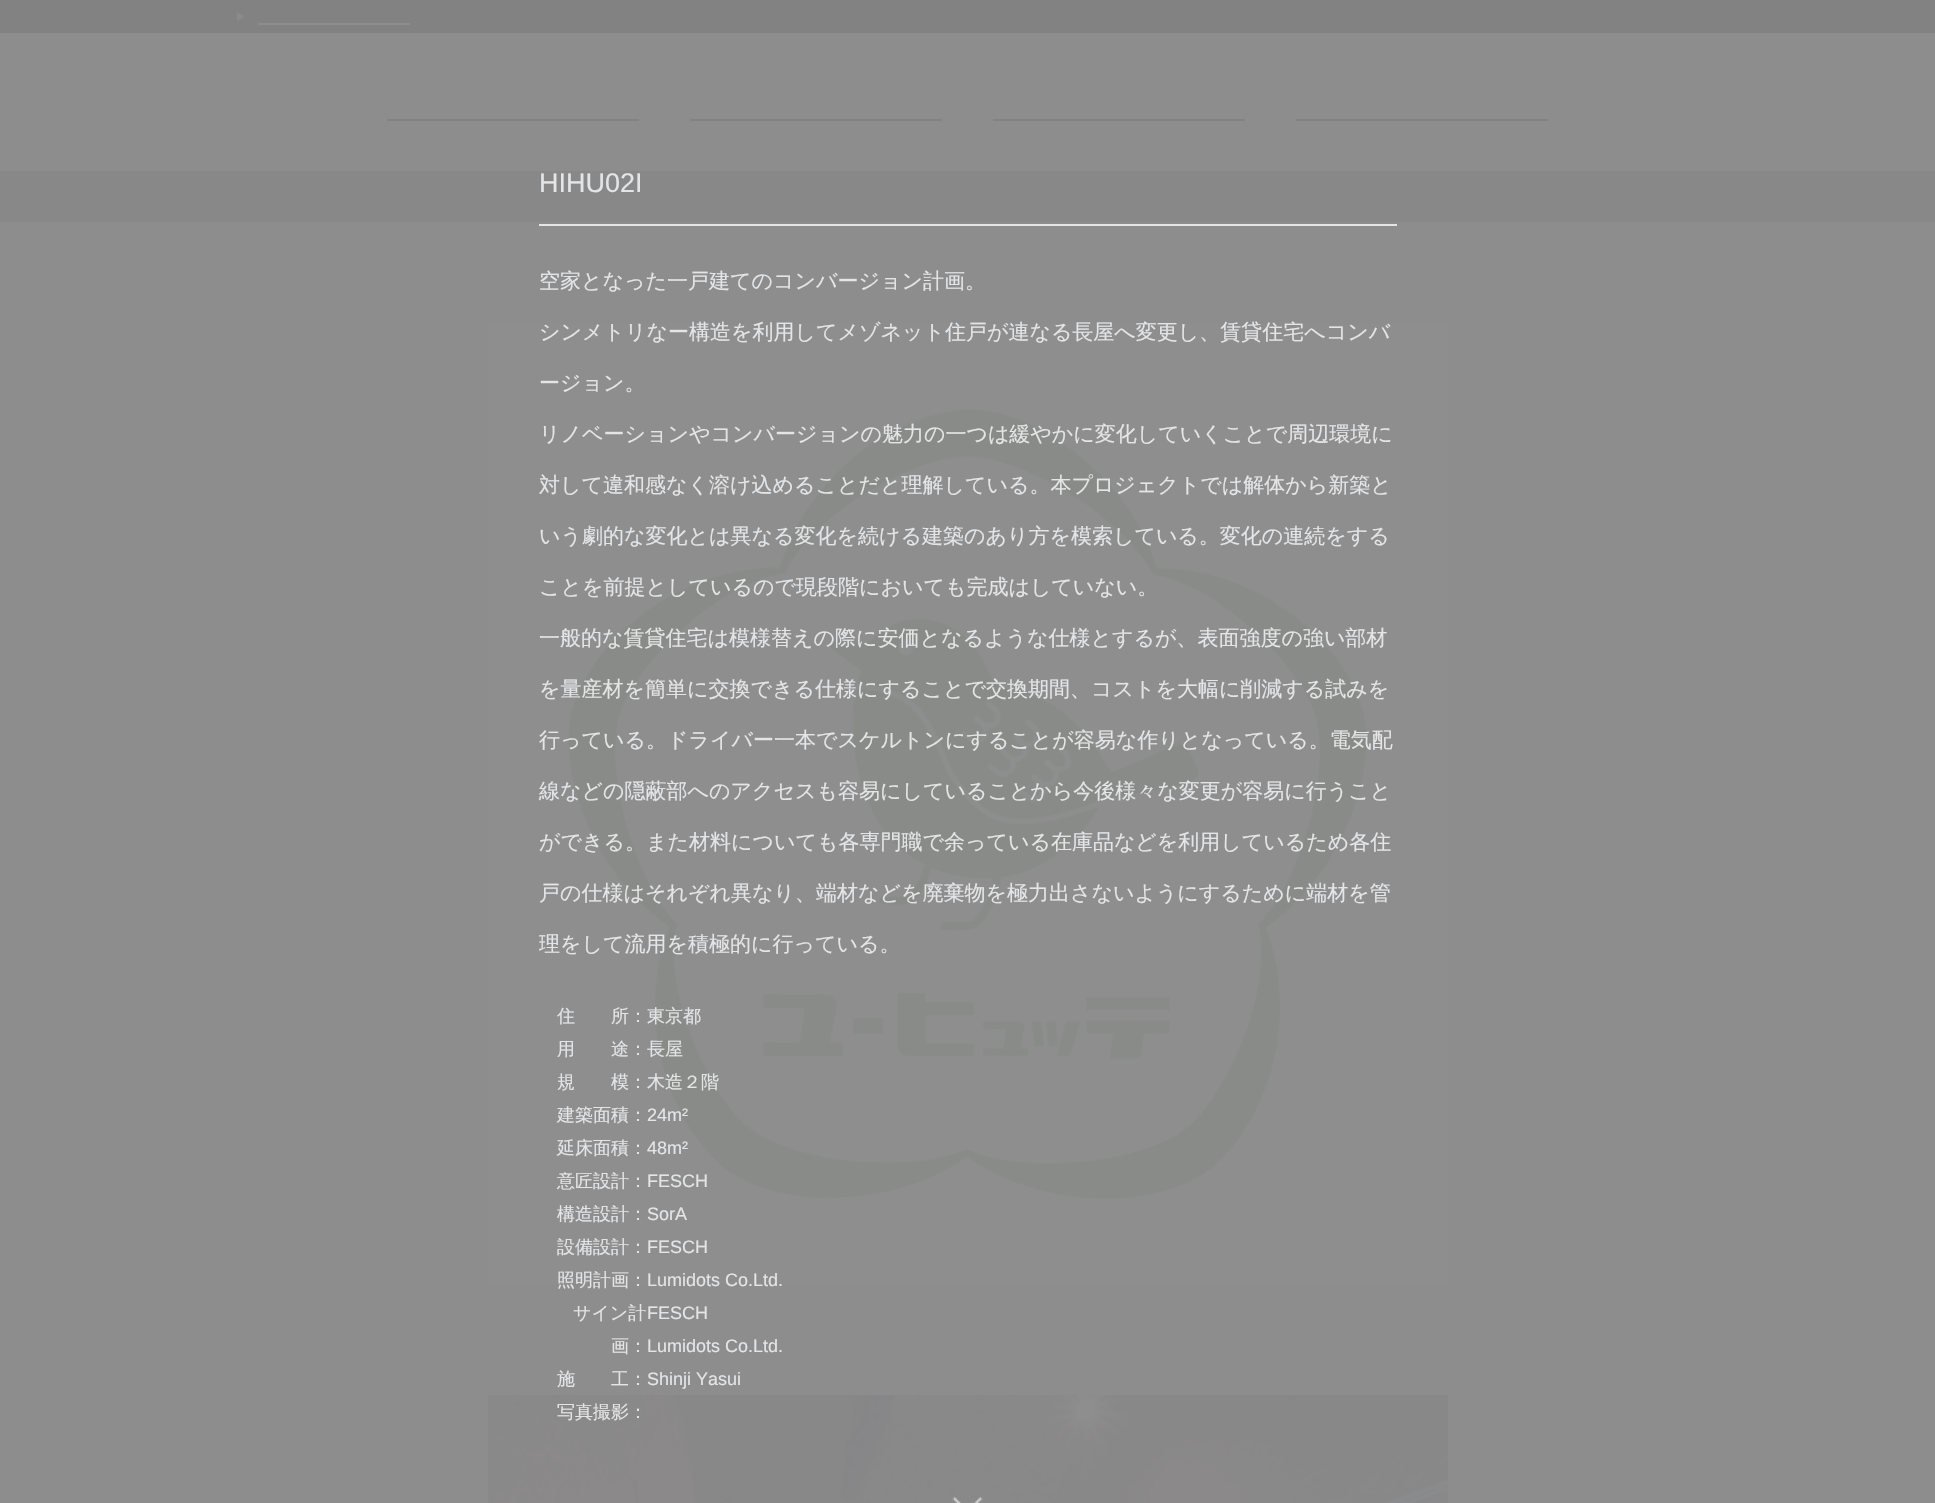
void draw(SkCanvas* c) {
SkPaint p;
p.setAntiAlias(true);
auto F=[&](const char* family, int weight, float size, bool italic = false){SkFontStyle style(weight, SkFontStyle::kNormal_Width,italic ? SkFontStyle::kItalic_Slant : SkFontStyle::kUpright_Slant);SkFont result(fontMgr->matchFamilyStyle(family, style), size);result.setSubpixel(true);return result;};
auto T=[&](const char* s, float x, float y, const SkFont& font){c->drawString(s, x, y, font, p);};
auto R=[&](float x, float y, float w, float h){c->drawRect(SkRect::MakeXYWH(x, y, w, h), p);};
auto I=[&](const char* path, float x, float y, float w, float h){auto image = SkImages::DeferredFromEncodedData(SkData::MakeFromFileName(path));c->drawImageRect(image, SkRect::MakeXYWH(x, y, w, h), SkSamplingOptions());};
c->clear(0xff8d8d8e);
p.setColor(0xff828283);
R(0,0,1935,33);
I("1.png",236,11,9,11);
p.setColor(0xff8d8d8e);
R(258,23,152,2);
I("2.png",387,118,252,1);
p.setColor(0xff828283);
R(387,119,252,2);
R(690,119,252,2);
R(993,119,252,2);
R(1296,119,252,2);
p.setColor(0xff888889);
R(0,171,1935,51);
I("3.png",488,324,960,960);
I("4.png",488,1395,960,108);
p.setColor(0xffe4e5e6);
R(539,224,858,2);
auto f1 = F("Liberation Sans",400,27);
T("HIHU02I",539,192,f1);
auto f2 = F("WenQuanYi Zen Hei",500,21);
T("空家となった一戸建てのコンバージョン計画。",539,288,f2);
T("シンメトリなー構造を利用してメゾネット住戸が連なる長屋へ変更し、賃貸住宅へコンバ",539,339,f2);
T("ージョン。",539,390,f2);
T("リノベーションやコンバージョンの魅力の一つは緩やかに変化していくことで周辺環境に",539,441,f2);
T("対して違和感なく溶け込めることだと理解している。本プロジェクトでは解体から新築と",539,492,f2);
T("いう劇的な変化とは異なる変化を続ける建築のあり方を模索している。変化の連続をする",539,543,f2);
T("ことを前提としているので現段階においても完成はしていない。",539,594,f2);
T("一般的な賃貸住宅は模様替えの際に安価となるような仕様とするが、表面強度の強い部材",539,645,f2);
T("を量産材を簡単に交換できる仕様にすることで交換期間、コストを大幅に削減する試みを",539,696,f2);
T("行っている。ドライバー一本でスケルトンにすることが容易な作りとなっている。電気配",539,747,f2);
T("線などの隠蔽部へのアクセスも容易にしていることから今後様々な変更が容易に行うこと",539,798,f2);
T("ができる。また材料についても各専門職で余っている在庫品などを利用しているため各住",539,849,f2);
T("戸の仕様はそれぞれ異なり、端材などを廃棄物を極力出さないようにするために端材を管",539,900,f2);
T("理をして流用を積極的に行っている。",539,951,f2);
auto f3 = F("WenQuanYi Zen Hei",500,18);
T("住　　所：東京都",557,1022,f3);
T("用　　途：長屋",557,1055,f3);
T("規　　模：木造２階",557,1088,f3);
T("建築面積：",557,1121,f3);
auto f4 = F("Liberation Sans",400,18);
T("24m²",647,1121,f4);
T("延床面積：",557,1154,f3);
T("48m²",647,1154,f4);
T("意匠設計：",557,1187,f3);
T("FESCH",647,1187,f4);
T("構造設計：",557,1220,f3);
T("SorA",647,1220,f4);
T("設備設計：",557,1253,f3);
T("FESCH",647,1253,f4);
T("照明計画：",557,1286,f3);
T("Lumidots Co.Ltd.",647,1286,f4);
T("サイン計",573,1319,f3);
T("画：",611,1352,f3);
T("FESCH",647,1319,f4);
T("Lumidots Co.Ltd.",647,1352,f4);
T("施　　工：",557,1385,f3);
T("Shinji Yasui",647,1385,f4);
T("写真撮影：",557,1418,f3);
I("5.png",952,1497,31,6);
}
